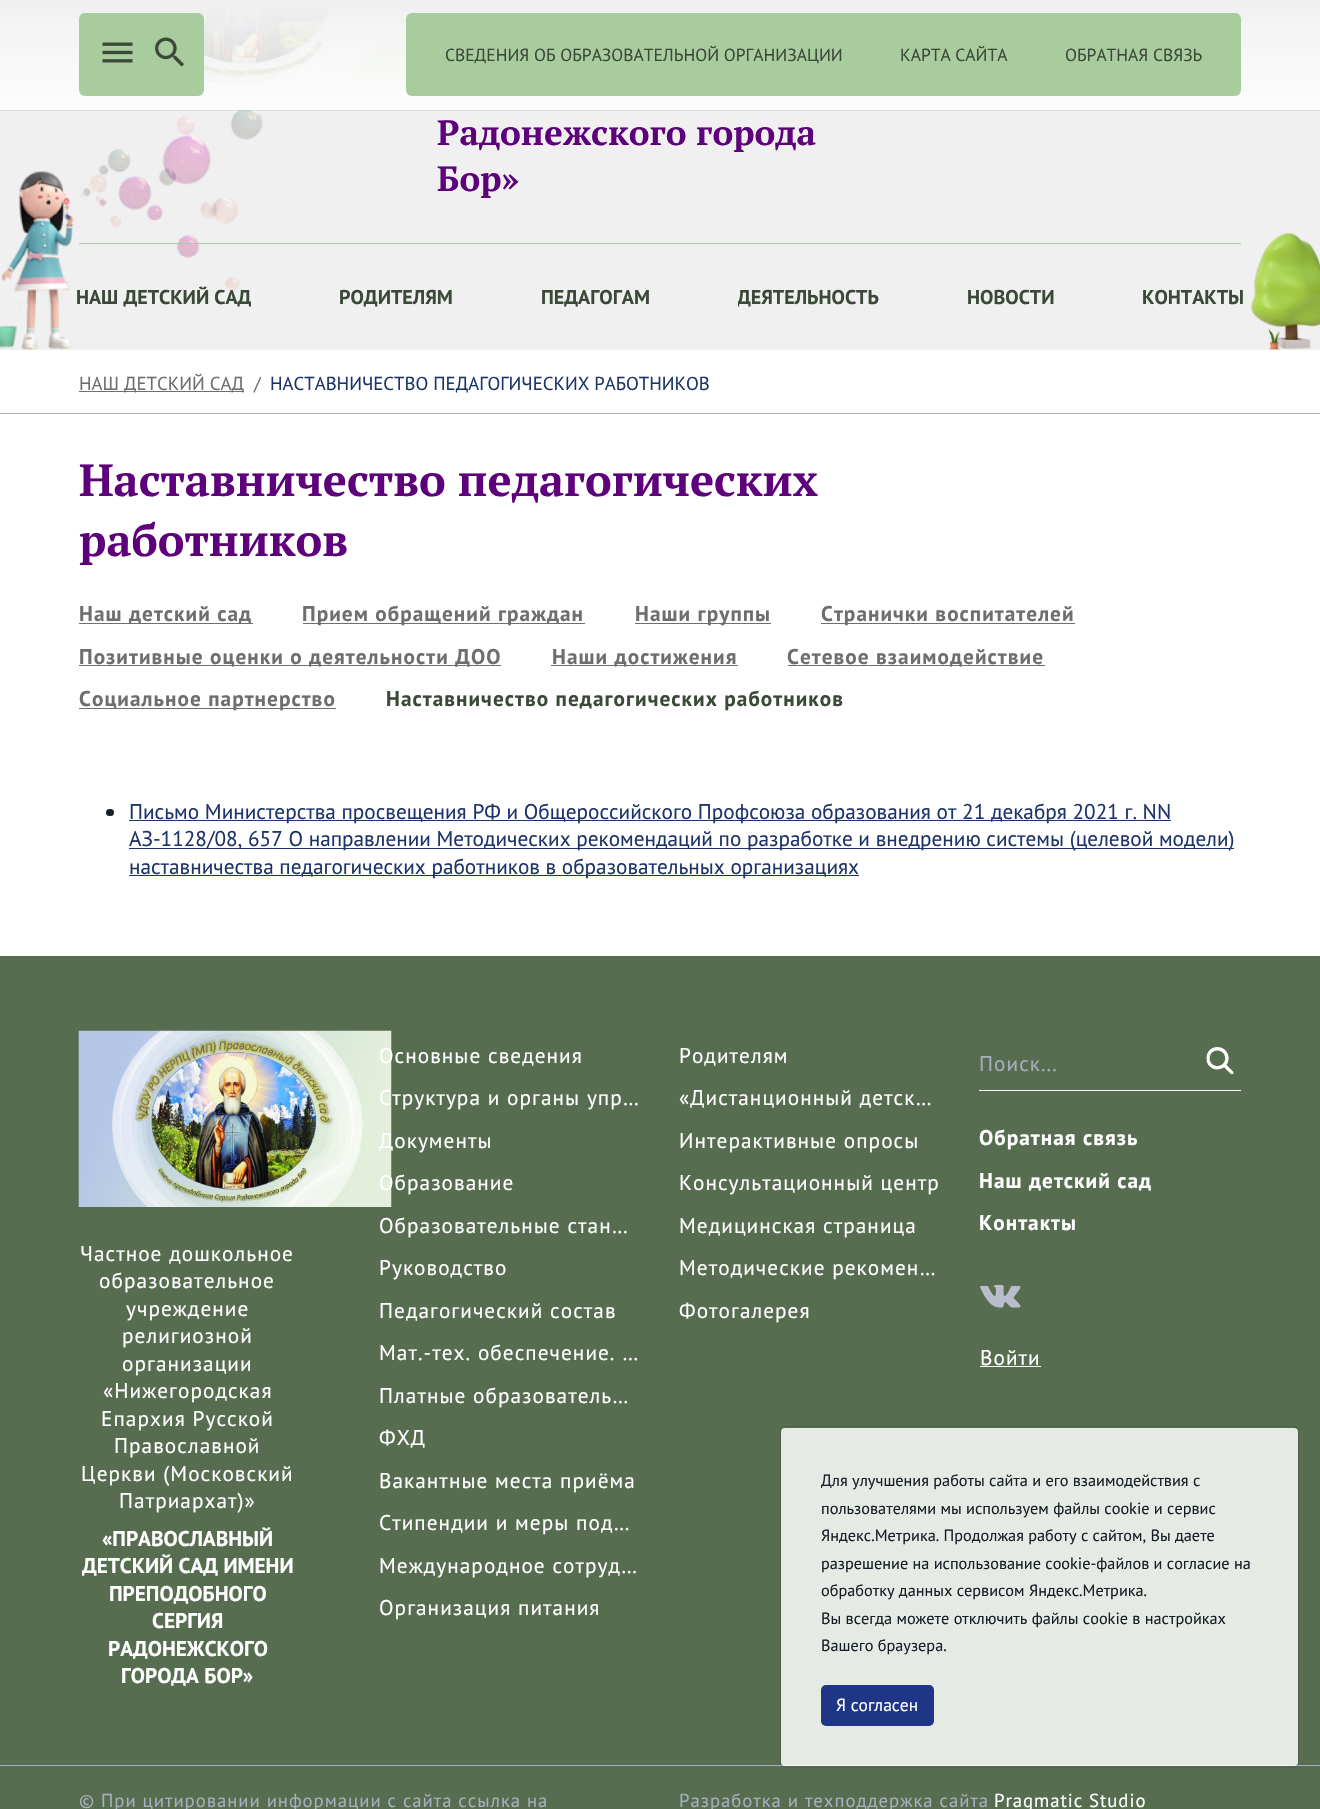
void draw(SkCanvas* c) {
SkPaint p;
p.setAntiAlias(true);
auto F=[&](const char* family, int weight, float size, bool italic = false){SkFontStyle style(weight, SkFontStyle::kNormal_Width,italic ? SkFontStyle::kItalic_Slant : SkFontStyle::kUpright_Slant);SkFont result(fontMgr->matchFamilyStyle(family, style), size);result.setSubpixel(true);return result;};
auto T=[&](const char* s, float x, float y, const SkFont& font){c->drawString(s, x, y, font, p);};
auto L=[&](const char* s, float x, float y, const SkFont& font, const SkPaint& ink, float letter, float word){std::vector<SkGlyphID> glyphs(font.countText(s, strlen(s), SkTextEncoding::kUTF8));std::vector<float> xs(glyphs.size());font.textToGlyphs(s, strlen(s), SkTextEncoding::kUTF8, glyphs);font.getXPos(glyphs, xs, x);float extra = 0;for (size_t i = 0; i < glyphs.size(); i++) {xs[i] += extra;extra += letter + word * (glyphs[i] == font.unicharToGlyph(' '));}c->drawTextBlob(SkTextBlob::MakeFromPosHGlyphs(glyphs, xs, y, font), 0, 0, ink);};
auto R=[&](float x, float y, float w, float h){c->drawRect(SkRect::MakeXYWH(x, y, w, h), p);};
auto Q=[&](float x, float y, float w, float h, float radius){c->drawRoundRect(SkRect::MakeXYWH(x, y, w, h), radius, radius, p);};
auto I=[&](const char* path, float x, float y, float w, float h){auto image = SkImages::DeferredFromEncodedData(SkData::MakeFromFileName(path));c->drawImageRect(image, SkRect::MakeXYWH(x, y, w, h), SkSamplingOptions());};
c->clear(0xffffffff);
p.setColor(0xfff0f0f0);
R(0,5,1320,345);
I("3.png",0,108,1320,242);
I("4.png",78,5,335,77);
c->save();
c->clipRect(SkRect::MakeXYWH(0,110,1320,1));
p.setColor(0x1a1c3467);
p.setMaskFilter(SkMaskFilter::MakeBlur(kNormal_SkBlurStyle, .5));
c->drawRect(SkRect::MakeXYWH(0,1,1320,110),p);
p.setMaskFilter(nullptr);
c->restore();
{
const SkColor colors[] = {0xfff0f0f0,0xccffffff};
const float stops[] = {.02,1};
const SkPoint ends[] = {{660,0}, {660,110}};
p.setShader(SkGradientShader::MakeLinear(ends, colors, stops, 2, SkTileMode::kClamp));
p.setAlpha(255);
}
R(0,0,1320,110);
p.setShader(nullptr);
p.setColor(0xffa8cc9e);
Q(79,13,125,83,6);
I("1.png",102,42,31,21);
I("2.png",155,37,29,30);
Q(406,13,835,83,6);
auto f1 = F("PT Sans",400,17.5);
p.setColor(0xff3b4938);
T("СВЕДЕНИЯ ОБ ОБРАЗОВАТЕЛЬНОЙ ОРГАНИЗАЦИИ",445,61,f1);
T("КАРТА САЙТА",900,61,f1);
T("ОБРАТНАЯ СВЯЗЬ",1065,61,f1);
auto f2 = F("PT Serif",700,35);
p.setColor(0xff5e007c);
T("Радонежского города",437,145,f2);
T("Бор»",437,191,f2);
p.setColor(0xffa8cc9e);
R(79,243,1162,1);
c->save();
c->clipRect(SkRect::MakeXYWH(76,284,175,26));
auto f3 = F("PT Sans",700,20);
p.setColor(0xff3b4938);
T("НАШ ДЕТСКИЙ САД",76,304,f3);
c->restore();
T("РОДИТЕЛЯМ",339,304,f3);
T("ПЕДАГОГАМ",541,304,f3);
c->save();
c->clipRect(SkRect::MakeXYWH(738,284,141,26));
T("ДЕЯТЕЛЬНОСТЬ",737,304,f3);
c->restore();
T("НОВОСТИ",967,304,f3);
T("КОНТАКТЫ",1142,304,f3);
p.setColor(0xffa6aebf);
R(0,413,1320,1);
p.setColor(0xff706d6d);
R(79,391,165,1);
auto f4 = F("PT Sans",400,18.75);
T("НАШ ДЕТСКИЙ САД",79,390,f4);
p.setColor(0xff6c757d);
T("/",254,390,f4);
p.setColor(0xff1c3467);
T("НАСТАВНИЧЕСТВО ПЕДАГОГИЧЕСКИХ РАБОТНИКОВ",270,390,f4);
auto f5 = F("PT Serif",700,45);
p.setColor(0xff5e007c);
T("Наставничество педагогических",79,496,f5);
T("работников",79,556,f5);
p.setColor(0xff706d6d);
R(79,623,174,1);
auto f6 = F("PT Sans",700,21.25);
L("Наш детский сад",79,621,f6,p,1.05,0);
R(303,623,282,1);
L("Прием обращений граждан",302,621,f6,p,1.05,0);
R(635,623,136,1);
L("Наши группы",635,621,f6,p,1.05,0);
R(821,623,254,1);
L("Странички воспитателей",821,621,f6,p,1.05,0);
R(79,665,422,1);
L("Позитивные оценки о деятельности ДОО",79,664,f6,p,1.05,0);
R(551,665,187,1);
L("Наши достижения",552,664,f6,p,1.05,0);
R(788,665,257,1);
L("Сетевое взаимодействие",787,664,f6,p,1.05,0);
R(79,708,257,1);
L("Социальное партнерство",79,706,f6,p,1.05,0);
p.setColor(0xff3b4938);
L("Наставничество педагогических работников",386,706,f6,p,1.05,0);
p.setColor(0xff161e26);
Q(106,809,8,7,3.5);
p.setColor(0xff1c3467);
R(129,820,1042,1);
auto f7 = F("PT Sans",400,21.25);
T("Письмо Министерства просвещения РФ и Общероссийского Профсоюза образования от 21 декабря 2021 г. NN",129,819,f7);
R(129,848,1105,1);
T("АЗ-1128/08, 657 О направлении Методических рекомендаций по разработке и внедрению системы (целевой модели)",129,846,f7);
R(129,875,730,1);
T("наставничества педагогических работников в образовательных организациях",129,874,f7);
p.setColor(0xff566d50);
R(0,956,1320,853);
I("7.png",78,1030,314,177);
p.setColor(0xffffffff);
L("Основные сведения",379,1063,f7,p,1.05,0);
L("Структура и органы упр…",379,1105,f7,p,1.05,0);
c->save();
c->clipRect(SkRect::MakeXYWH(379,1126,114,28));
L("Документы",379,1148,f7,p,1.05,0);
c->restore();
L("Образование",379,1190,f7,p,1.05,0);
L("Образовательные стан…",379,1233,f7,p,1.05,0);
L("Руководство",379,1275,f7,p,1.05,0);
L("Педагогический состав",379,1318,f7,p,1.05,0);
L("Мат.-тех. обеспечение. …",379,1360,f7,p,1.05,0);
L("Платные образователь…",379,1403,f7,p,1.05,0);
L("ФХД",379,1445,f7,p,1.05,0);
L("Вакантные места приёма",379,1488,f7,p,1.05,0);
L("Стипендии и меры под…",379,1530,f7,p,1.05,0);
L("Международное сотруд…",379,1573,f7,p,1.05,0);
L("Организация питания",379,1615,f7,p,1.05,0);
L("Родителям",679,1063,f7,p,1.05,0);
L("«Дистанционный детск…",679,1105,f7,p,1.05,0);
L("Интерактивные опросы",679,1148,f7,p,1.05,0);
L("Консультационный центр",679,1190,f7,p,1.05,0);
L("Медицинская страница",679,1233,f7,p,1.05,0);
L("Методические рекомен…",679,1275,f7,p,1.05,0);
L("Фотогалерея",679,1318,f7,p,1.05,0);
R(979,1090,262,1);
p.setColor(0xffa6aebf);
L("Поиск...",979,1071,f7,p,1.05,0);
I("5.png",1206,1047,28,28);
p.setColor(0xffffffff);
L("Обратная связь",979,1145,f6,p,1.05,0);
L("Наш детский сад",979,1188,f6,p,1.05,0);
L("Контакты",979,1230,f6,p,1.05,0);
I("6.png",980,1284,41,24);
L("Войти",980,1365,f7,p,1.05,0);
R(980,1366,61,1);
L("Частное дошкольное",80,1261,f7,p,1.05,0);
L("образовательное",99,1288,f7,p,1.05,0);
L("учреждение",126,1316,f7,p,1.05,0);
L("религиозной",122,1343,f7,p,1.05,0);
L("организации",122,1371,f7,p,1.05,0);
L("«Нижегородская",103,1398,f7,p,1.05,0);
L("Епархия Русской",101,1426,f7,p,1.05,0);
L("Православной",114,1453,f7,p,1.05,0);
L("Церкви (Московский",81,1481,f7,p,1.05,0);
L("Патриархат)»",119,1508,f7,p,1.05,0);
T("«ПРАВОСЛАВНЫЙ",102,1546,f6);
T("ДЕТСКИЙ САД ИМЕНИ",82,1573,f6);
T("ПРЕПОДОБНОГО",109,1601,f6);
T("СЕРГИЯ",152,1628,f6);
T("РАДОНЕЖСКОГО",108,1656,f6);
T("ГОРОДА БОР»",121,1683,f6);
p.setColor(0xffa6aebf);
R(0,1765,1320,1);
L("© При цитировании информации с сайта ссылка на",79,1807,f4,p,.95,0);
L("Разработка и техподдержка сайта",679,1807,f4,p,.95,0);
p.setColor(0xffffffff);
L("Pragmatic Studio",994,1807,f4,p,.95,0);
p.setColor(0xd9ffffff);
Q(781,1428,517,338,4);
p.setStroke(true);
p.setStrokeWidth(1);
p.setColor(0x1a000000);
c->drawRoundRect(SkRect::MakeXYWH(780.5,1426.5,518,341),4.5,4.5,p);
auto f8 = F("PT Sans",400,16.25);
p.setStroke(false);
p.setColor(0xff161e26);
T("Для улучшения работы сайта и его взаимодействия с",821,1486,f8);
T("пользователями мы используем файлы cookie и сервис",821,1514,f8);
T("Яндекс.Метрика. Продолжая работу с сайтом, Вы даете",821,1541,f8);
T("разрешение на использование cookie-файлов и согласие на",821,1569,f8);
T("обработку данных сервисом Яндекс.Метрика.",821,1596,f8);
T("Вы всегда можете отключить файлы cookie в настройках",821,1624,f8);
T("Вашего браузера.",821,1651,f8);
p.setColor(0xff1e3685);
Q(821,1685,113,41,5);
p.setColor(0xffffffff);
T("Я согласен",836,1711,f1);
}
